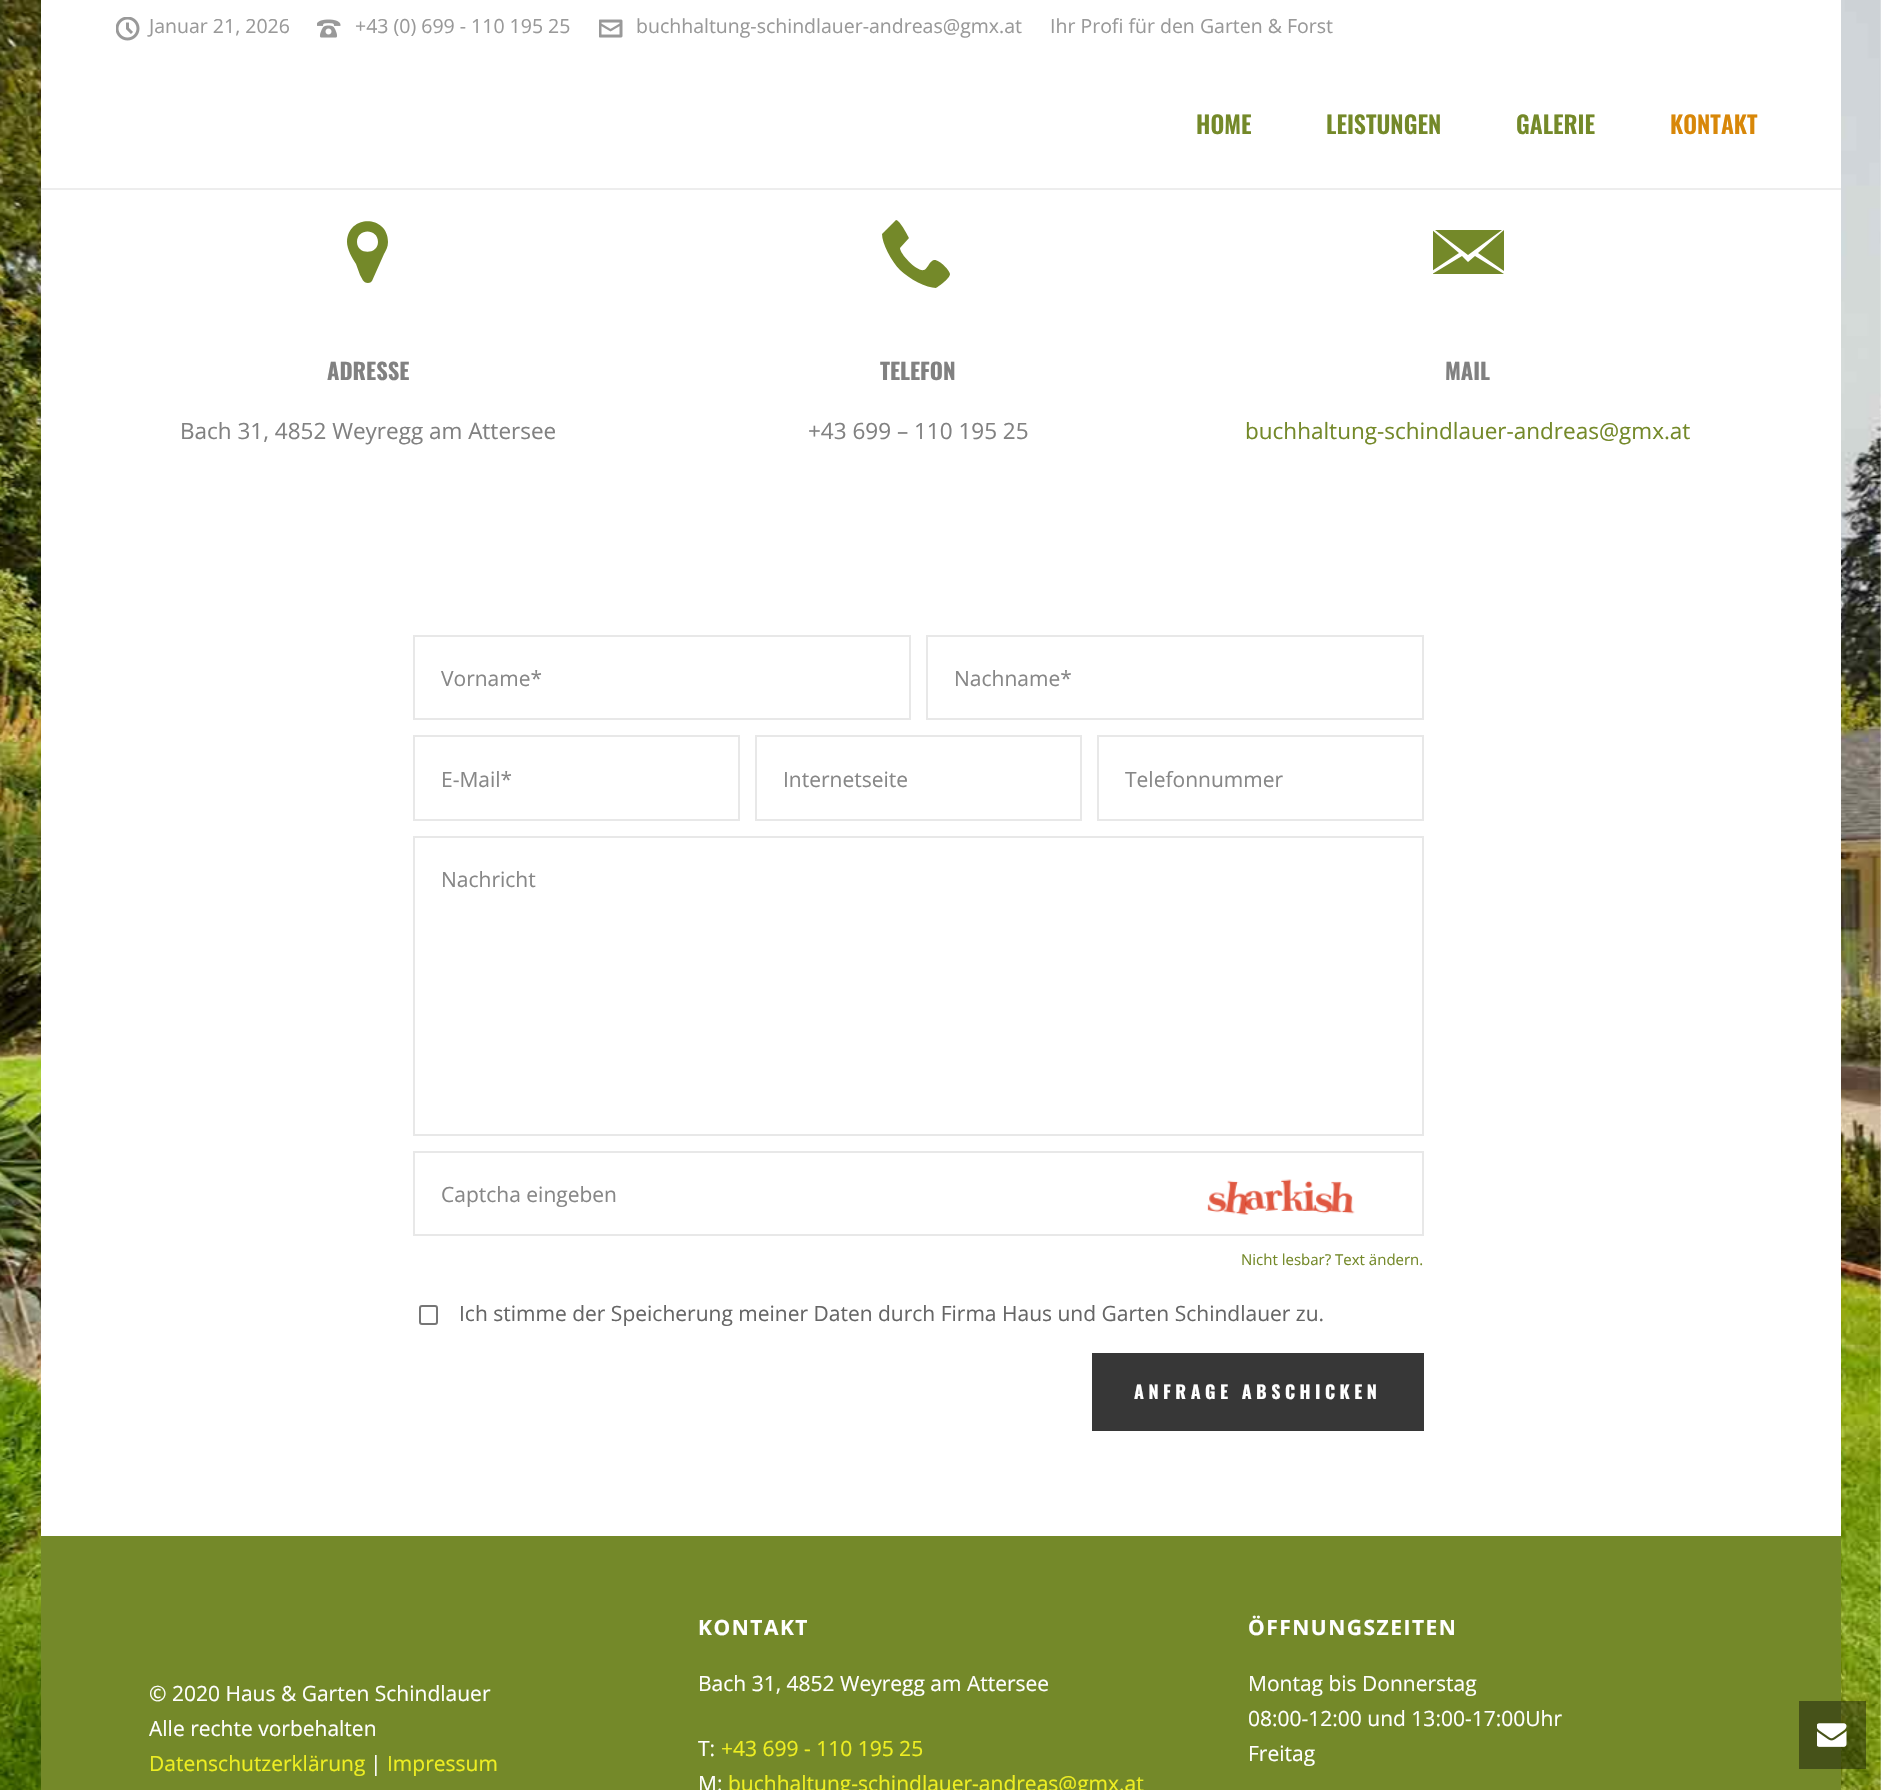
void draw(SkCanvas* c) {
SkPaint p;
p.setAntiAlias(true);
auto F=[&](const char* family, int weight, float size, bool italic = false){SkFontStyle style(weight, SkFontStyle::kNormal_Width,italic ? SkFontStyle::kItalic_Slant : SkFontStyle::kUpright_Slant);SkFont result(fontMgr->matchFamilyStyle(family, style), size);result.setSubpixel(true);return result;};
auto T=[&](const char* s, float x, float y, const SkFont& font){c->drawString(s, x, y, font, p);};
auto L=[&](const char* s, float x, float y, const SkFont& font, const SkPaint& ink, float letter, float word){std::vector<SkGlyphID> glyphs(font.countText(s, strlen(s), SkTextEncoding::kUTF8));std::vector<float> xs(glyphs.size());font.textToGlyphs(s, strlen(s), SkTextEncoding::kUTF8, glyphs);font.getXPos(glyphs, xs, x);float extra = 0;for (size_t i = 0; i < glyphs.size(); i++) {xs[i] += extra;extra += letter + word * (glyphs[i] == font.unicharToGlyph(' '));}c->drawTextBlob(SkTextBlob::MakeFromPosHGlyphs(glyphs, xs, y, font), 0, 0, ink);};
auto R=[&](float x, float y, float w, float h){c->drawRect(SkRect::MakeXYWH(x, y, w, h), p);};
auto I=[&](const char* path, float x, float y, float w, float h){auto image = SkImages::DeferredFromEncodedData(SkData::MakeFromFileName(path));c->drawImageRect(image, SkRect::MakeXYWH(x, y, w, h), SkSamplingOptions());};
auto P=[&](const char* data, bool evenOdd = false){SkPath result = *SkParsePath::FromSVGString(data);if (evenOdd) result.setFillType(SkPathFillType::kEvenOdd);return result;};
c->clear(0xffffffff);
I("1.png",0,0,1881,1790);
p.setColor(0xffffffff);
R(41,0,1800,188);
I("2.png",116,17,24,24);
auto f1 = F("Open Sans",400,19.5);
p.setColor(0xff999999);
T("Januar 21, 2026",149,33,f1);
I("3.png",317,19,24,19);
T("+43 (0) 699 - 110 195 25",355,33,f1);
I("4.png",599,19,24,19);
T("buchhaltung-schindlauer-andreas@gmx.at",636,33,f1);
T("Ihr Profi für den Garten & Forst",1050,33,f1);
p.setColor(0xffededed);
R(41,188,1800,2);
auto f2 = F("Oswald",600,24);
p.setColor(0xff748929);
T("HOME",1196,134,f2);
T("LEISTUNGEN",1326,134,f2);
T("GALERIE",1516,134,f2);
p.setColor(0xffd88708);
T("KONTAKT",1670,134,f2);
p.setColor(0xffffffff);
R(41,190,1800,1346);
p.setColor(0xff748929);
c->drawPath(P("M378 242c0-14-21-14-21 0c0 13 21 13 21 0zm10 0c0 5-2 8-4 12l-12 27c-1 1-2 2-4 2c-5 0-6-5-8-8l-4-11c-4-6-9-15-9-22c1-28 41-27 41 0z"),p);
auto f3 = F("Oswald",700,22.5);
p.setColor(0xff818181);
T("ADRESSE",327,380,f3);
auto f4 = F("Open Sans",400,22.5);
T("Bach 31, 4852 Weyregg am Attersee",180,439,f4);
p.setColor(0xff748929);
c->drawPath(P("M932 261c-3 2-5 8-8 9c-7 2-24-16-24-22l9-10c0 0-9-18-13-18l-14 14c0 9 9 27 18 36c9 9 27 18 36 18c0 0 14-9 14-14c0-4-14-18-18-13z"),p);
p.setColor(0xff818181);
T("TELEFON",880,380,f3);
T("+43 699 – 110 195 25",808,439,f4);
c->save();
c->clipRect(SkRect::MakeXYWH(1433,216,72,72));
p.setColor(0xff748929);
c->drawPath(P("M1478 253l26 18v-41zm-46-23v41l27-18zm36 32l-6-6l-30 18h72l-29-18zm34-32h-67l33 25z"),p);
c->restore();
p.setColor(0xff818181);
T("MAIL",1445,380,f3);
p.setColor(0xff748929);
T("buchhaltung-schindlauer-andreas@gmx.at",1245,439,f4);
p.setStroke(true);
p.setStrokeWidth(2);
p.setColor(0xffe8e8e8);
c->drawRect(SkRect::MakeXYWH(414,636,496,83),p);
auto f5 = F("Open Sans",400,21);
p.setStroke(false);
p.setColor(0xff878787);
T("Vorname*",441,686,f5);
p.setStroke(true);
p.setColor(0xffe8e8e8);
c->drawRect(SkRect::MakeXYWH(927,636,496,83),p);
p.setStroke(false);
p.setColor(0xff878787);
T("Nachname*",954,686,f5);
p.setStroke(true);
p.setColor(0xffe8e8e8);
c->drawRect(SkRect::MakeXYWH(414,736,325,84),p);
p.setStroke(false);
p.setColor(0xff878787);
T("E-Mail*",441,787,f5);
p.setStroke(true);
p.setColor(0xffe8e8e8);
c->drawRect(SkRect::MakeXYWH(756,736,325,84),p);
p.setStroke(false);
p.setColor(0xff878787);
T("Internetseite",783,787,f5);
p.setStroke(true);
p.setColor(0xffe8e8e8);
c->drawRect(SkRect::MakeXYWH(1098,736,325,84),p);
p.setStroke(false);
p.setColor(0xff878787);
T("Telefonnummer",1125,787,f5);
p.setStroke(true);
p.setColor(0xffe8e8e8);
c->drawRect(SkRect::MakeXYWH(414,837,1009,298),p);
p.setStroke(false);
p.setColor(0xff878787);
T("Nachricht",441,887,f5);
p.setStroke(true);
p.setColor(0xffe8e8e8);
c->drawRect(SkRect::MakeXYWH(414,1152,1009,83),p);
p.setStroke(false);
p.setColor(0xff878787);
T("Captcha eingeben",441,1202,f5);
I("5.png",1207,1179,148,36);
auto f6 = F("Open Sans",400,15);
p.setColor(0xff748929);
T("Nicht lesbar? Text ändern.",1241,1265,f6);
p.setStroke(true);
p.setColor(0xff767676);
c->drawRoundRect(SkRect::MakeXYWH(420,1306,17,18),2,2,p);
p.setStroke(false);
p.setColor(0xff666666);
T("Ich stimme der Speicherung meiner Daten durch Firma Haus und Garten Schindlauer zu.",459,1321,f5);
p.setColor(0xff373737);
R(1092,1353,332,78);
auto f7 = F("Oswald",700,18);
p.setColor(0xffffffff);
L("ANFRAGE ABSCHICKEN",1134,1399,f7,p,4.5,0);
p.setColor(0xff748929);
R(41,1536,1800,254);
p.setColor(0xffffffff);
T("© 2020 Haus & Garten Schindlauer",149,1701,f5);
T("Alle rechte vorbehalten",149,1736,f5);
p.setColor(0xffeeee22);
T("Datenschutzerklärung",149,1771,f5);
p.setColor(0xffffffff);
T("|",370,1771,f5);
p.setColor(0xffeeee22);
T("Impressum",387,1771,f5);
auto f8 = F("Open Sans",700,21);
p.setColor(0xffffffff);
L("KONTAKT",698,1635,f8,p,1.5,0);
T("Bach 31, 4852 Weyregg am Attersee",698,1691,f5);
T("T:",698,1756,f5);
p.setColor(0xffeeee22);
T("+43 699 - 110 195 25",721,1756,f5);
p.setColor(0xffffffff);
T("M:",698,1791,f5);
p.setColor(0xffeeee22);
T("buchhaltung-schindlauer-andreas@gmx.at",728,1791,f5);
p.setColor(0xffffffff);
L("ÖFFNUNGSZEITEN",1248,1635,f8,p,1.5,0);
T("Montag bis Donnerstag",1248,1691,f5);
T("08:00-12:00 und 13:00-17:00Uhr",1248,1726,f5);
T("Freitag",1248,1761,f5);
p.setColor(0x66000000);
R(1799,1701,67,68);
I("6.png",1817,1723,30,24);
}
